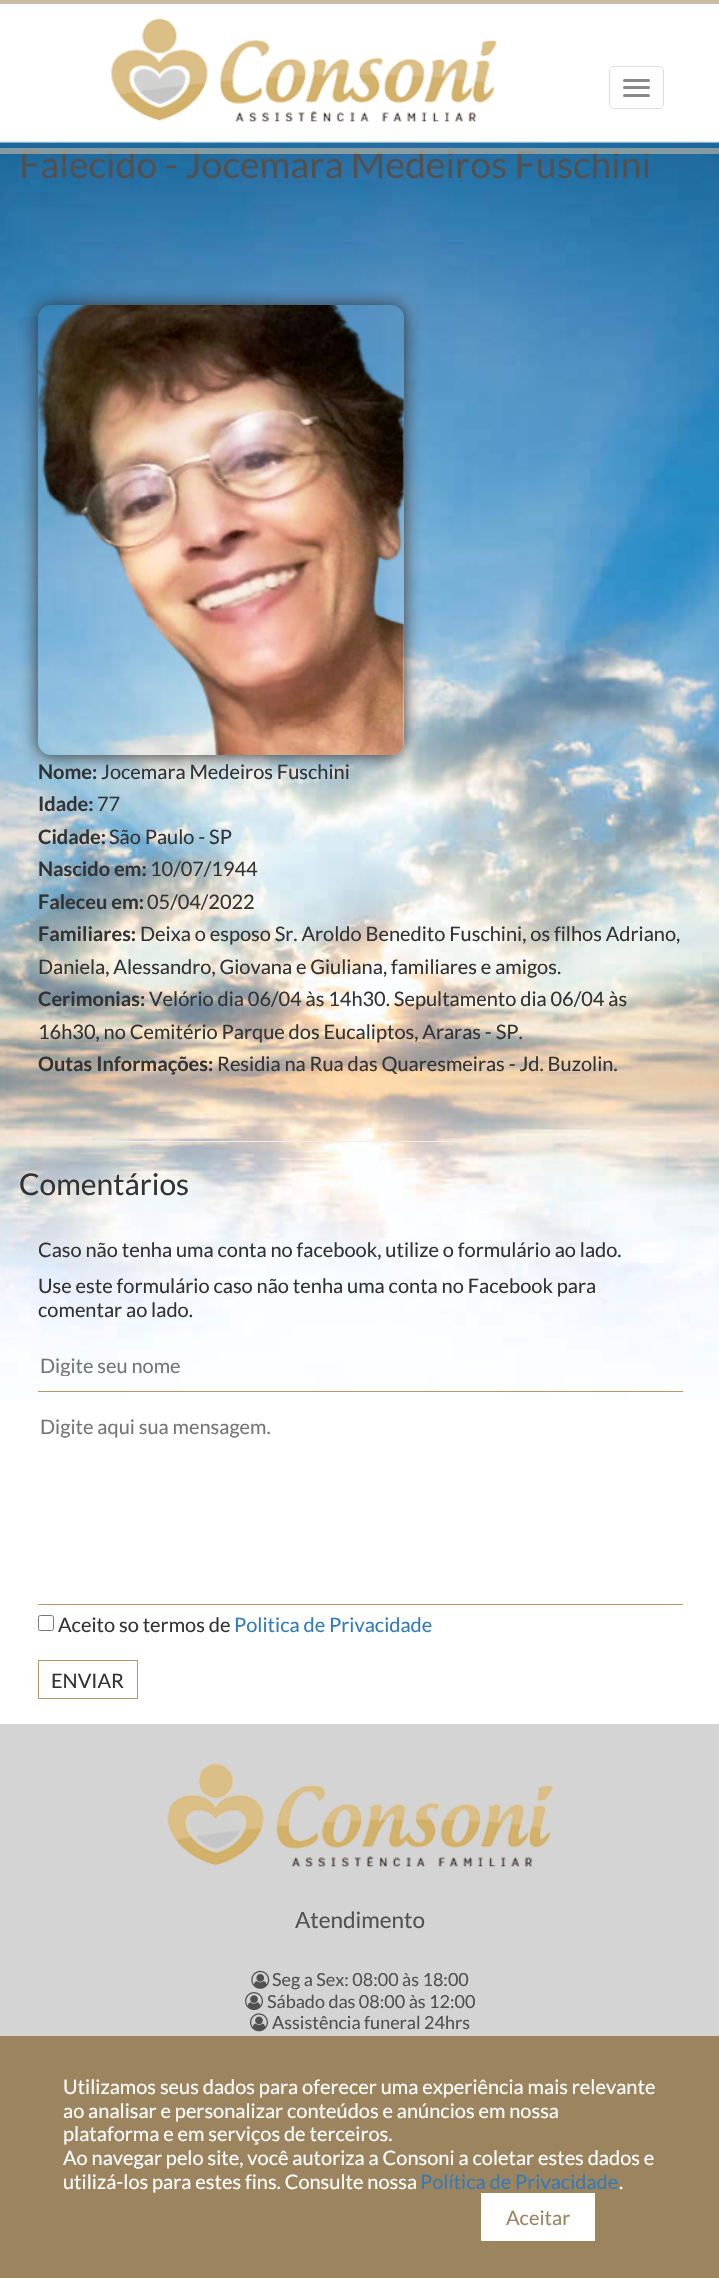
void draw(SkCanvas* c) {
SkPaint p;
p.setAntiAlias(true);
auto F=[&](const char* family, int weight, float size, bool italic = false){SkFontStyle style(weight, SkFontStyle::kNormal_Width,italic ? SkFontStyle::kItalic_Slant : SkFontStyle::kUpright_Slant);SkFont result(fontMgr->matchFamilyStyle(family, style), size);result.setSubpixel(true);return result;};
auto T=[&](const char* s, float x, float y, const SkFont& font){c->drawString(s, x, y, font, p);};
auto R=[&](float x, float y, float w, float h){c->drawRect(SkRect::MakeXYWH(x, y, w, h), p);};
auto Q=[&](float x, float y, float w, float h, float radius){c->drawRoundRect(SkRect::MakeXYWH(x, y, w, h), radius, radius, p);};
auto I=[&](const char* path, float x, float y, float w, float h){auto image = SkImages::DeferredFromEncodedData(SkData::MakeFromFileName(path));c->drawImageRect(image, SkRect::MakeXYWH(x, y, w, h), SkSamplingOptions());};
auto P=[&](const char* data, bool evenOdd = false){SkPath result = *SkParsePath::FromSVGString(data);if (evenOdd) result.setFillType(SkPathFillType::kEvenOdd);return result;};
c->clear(0xffffffff);
p.setColor(0xffc8baa3);
R(0,0,719,4);
p.setColor(0xffe7e7e7);
R(0,141,719,1);
I("1.png",111,18,386,104);
p.setStroke(true);
p.setStrokeWidth(1);
p.setColor(0xffdddddd);
c->drawRoundRect(SkRect::MakeXYWH(609.5,66.5,54,42),4.5,4.5,p);
p.setStroke(false);
p.setColor(0xff888888);
Q(623,79,27,3,1.5);
Q(623,86,27,3,1.5);
Q(623,94,27,3,1.5);
I("2.png",0,142,719,1258);
auto f1 = F("Lato",400,37.5);
p.setColor(0xff515151);
T("Falecido - Jocemara Medeiros Fuschini",19,178,f1);
p.setColor(0x99c8baa3);
R(0,148,719,6);
c->save();
c->clipPath(P("M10 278h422v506h-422zm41 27h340c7 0 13 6 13 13v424c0 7-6 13-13 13h-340c-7 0-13-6-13-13v-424c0-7 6-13 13-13z",true),true);
p.setColor(0xff323232);
p.setMaskFilter(SkMaskFilter::MakeBlur(kNormal_SkBlurStyle, 9));
c->drawRoundRect(SkRect::MakeXYWH(38,306,366,450),13,13,p);
p.setMaskFilter(nullptr);
c->restore();
I("3.png",37,305,367,450);
auto f2 = F("Lato",700,20);
p.setColor(0xff333333);
T("Nome:",38,779,f2);
auto f3 = F("Lato",400,20);
T("Jocemara Medeiros Fuschini",101,779,f3);
T("Idade:",38,811,f2);
T("77",97,811,f3);
T("Cidade:",38,844,f2);
T("São Paulo - SP",109,844,f3);
T("Nascido em:",38,876,f2);
T("10/07/1944",150,876,f3);
T("Faleceu em:",38,909,f2);
T("05/04/2022",147,909,f3);
T("Familiares:",38,941,f2);
T("Deixa o esposo Sr. Aroldo Benedito Fuschini, os filhos Adriano,",140,941,f3);
T("Daniela, Alessandro, Giovana e Giuliana, familiares e amigos.",38,974,f3);
T("Cerimonias:",38,1006,f2);
T("Velório dia 06/04 às 14h30. Sepultamento dia 06/04 às",149,1006,f3);
T("16h30, no Cemitério Parque dos Eucaliptos, Araras - SP.",38,1039,f3);
T("Outas Informações:",38,1071,f2);
T("Residia na Rua das Quaresmeiras - Jd. Buzolin.",217,1071,f3);
p.setColor(0xffeeeeee);
R(19,1141,682,1);
auto f4 = F("Lato",400,30);
p.setColor(0xff333333);
T("Comentários",19,1195,f4);
T("Caso não tenha uma conta no facebook, utilize o formulário ao lado.",38,1257,f3);
T("Use este formulário caso não tenha uma conta no Facebook para",38,1293,f3);
T("comentar ao lado.",38,1317,f3);
p.setColor(0xffb89669);
R(38,1391,645,1);
c->save();
c->clipRect(SkRect::MakeXYWH(40,1353,640,23));
p.setColor(0xff757575);
T("Digite seu nome",40,1373,f3);
c->restore();
p.setColor(0xffb89669);
R(38,1604,645,1);
p.setColor(0xff757575);
T("Digite aqui sua mensagem.",40,1434,f3);
p.setStroke(true);
p.setColor(0xff767676);
c->drawRoundRect(SkRect::MakeXYWH(38.5,1615.5,15,15),2,2,p);
p.setStroke(false);
p.setColor(0xff333333);
T("Aceito so termos de",58,1632,f3);
p.setColor(0xff337ab7);
T("Politica de Privacidade",234,1632,f3);
p.setStroke(true);
p.setColor(0xffb89669);
c->drawRect(SkRect::MakeXYWH(38.5,1660.5,99,38),p);
p.setStroke(false);
p.setColor(0xff333333);
T("ENVIAR",51,1688,f3);
p.setColor(0xffd4d4d4);
R(0,1724,719,312);
I("4.png",167,1763,386,104);
auto f5 = F("Lato",400,22.5);
p.setColor(0xff515151);
T("Atendimento",295,1928,f5);
I("5.png",251,1970,19,19);
auto f6 = F("Lato",400,18);
T("Seg a Sex: 08:00 às 18:00",272,1986,f6);
I("6.png",245,1992,18,18);
T("Sábado das 08:00 às 12:00",267,2008,f6);
I("7.png",250,2013,18,19);
T("Assistência funeral 24hrs",272,2029,f6);
p.setColor(0xff9c845f);
R(0,2036,719,242);
p.setColor(0xffffffff);
T("Utilizamos seus dados para oferecer uma experiência mais relevante",63,2094,f3);
T("ao analisar e personalizar conteúdos e anúncios em nossa",63,2118,f3);
T("plataforma e em serviços de terceiros.",63,2141,f3);
T("Ao navegar pelo site, você autoriza a Consoni a coletar estes dados e",63,2165,f3);
T("utilizá-los para estes fins. Consulte nossa",63,2189,f3);
p.setColor(0xff337ab7);
T("Política de Privacidade",420,2189,f3);
p.setColor(0xffffffff);
T(".",619,2189,f3);
R(481,2193,114,48);
p.setColor(0xff9c845f);
T("Aceitar",506,2225,f3);
}
